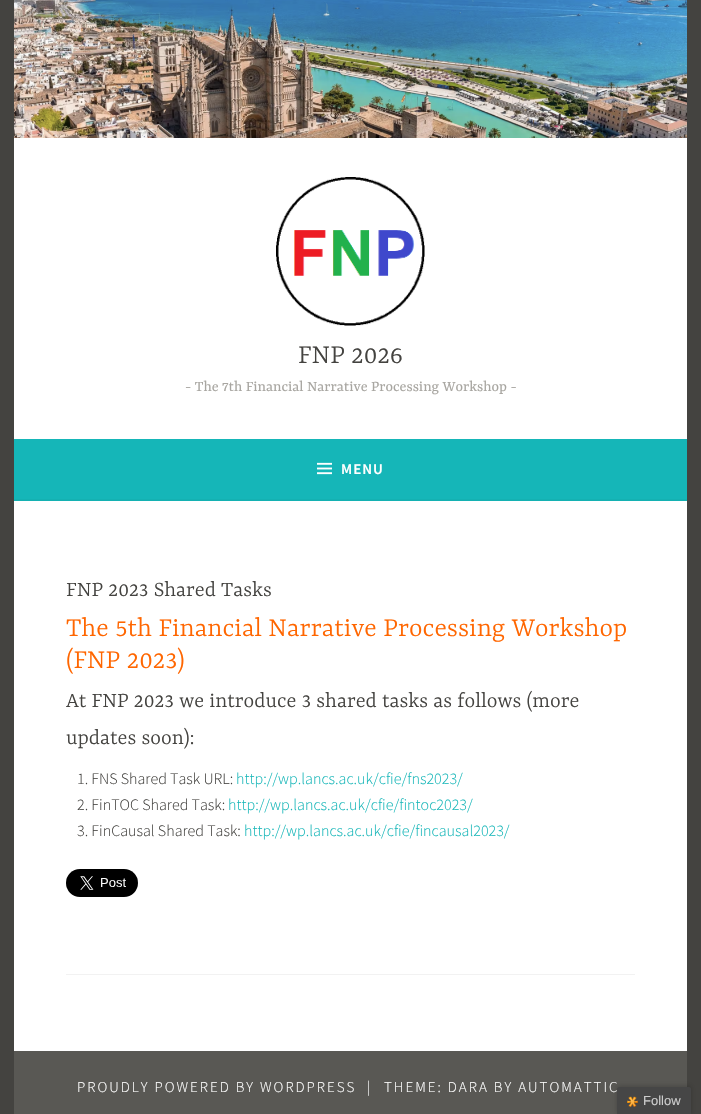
void draw(SkCanvas* c) {
SkPaint p;
p.setAntiAlias(true);
auto F=[&](const char* family, int weight, float size, bool italic = false){SkFontStyle style(weight, SkFontStyle::kNormal_Width,italic ? SkFontStyle::kItalic_Slant : SkFontStyle::kUpright_Slant);SkFont result(fontMgr->matchFamilyStyle(family, style), size);result.setSubpixel(true);return result;};
auto T=[&](const char* s, float x, float y, const SkFont& font){c->drawString(s, x, y, font, p);};
auto L=[&](const char* s, float x, float y, const SkFont& font, const SkPaint& ink, float letter, float word){std::vector<SkGlyphID> glyphs(font.countText(s, strlen(s), SkTextEncoding::kUTF8));std::vector<float> xs(glyphs.size());font.textToGlyphs(s, strlen(s), SkTextEncoding::kUTF8, glyphs);font.getXPos(glyphs, xs, x);float extra = 0;for (size_t i = 0; i < glyphs.size(); i++) {xs[i] += extra;extra += letter + word * (glyphs[i] == font.unicharToGlyph(' '));}c->drawTextBlob(SkTextBlob::MakeFromPosHGlyphs(glyphs, xs, y, font), 0, 0, ink);};
auto R=[&](float x, float y, float w, float h){c->drawRect(SkRect::MakeXYWH(x, y, w, h), p);};
auto I=[&](const char* path, float x, float y, float w, float h){auto image = SkImages::DeferredFromEncodedData(SkData::MakeFromFileName(path));c->drawImageRect(image, SkRect::MakeXYWH(x, y, w, h), SkSamplingOptions());};
auto P=[&](const char* data, bool evenOdd = false){SkPath result = *SkParsePath::FromSVGString(data);if (evenOdd) result.setFillType(SkPathFillType::kEvenOdd);return result;};
c->clear(0xff444340);
I("1.png",14,0,673,138);
p.setColor(0xffffffff);
R(14,138,673,301);
I("2.png",276,177,149,149);
auto f1 = F("Yrsa",300,29);
p.setColor(0xff444340);
T("FNP 2026",298,363,f1);
auto f2 = F("Yrsa",400,16);
p.setColor(0xffa8a6a1);
T("- The 7th Financial Narrative Processing Workshop -",185,391,f2);
p.setColor(0xff15b6b8);
R(14,439,673,60);
p.setColor(0xff14b1b2);
R(14,499,673,2);
I("3.png",317,462,15,13);
auto f3 = F("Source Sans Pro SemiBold",600,15);
p.setColor(0xffffffff);
L("MENU",341,474,f3,p,1,0);
R(14,501,673,550);
auto f4 = F("Yrsa",300,23);
p.setColor(0xff444340);
T("FNP 2023 Shared Tasks",66,596,f4);
p.setColor(0xffff6600);
T("The 5th Financial Narrative Processing Workshop",66,636,f1);
T("(FNP 2023)",66,668,f1);
p.setColor(0xff444340);
T("At FNP 2023 we introduce 3 shared tasks as follows (more",66,707,f4);
T("updates soon):",66,744,f4);
auto f5 = F("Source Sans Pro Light",300,16);
T("1. FNS Shared Task URL:",77,784,f5);
p.setColor(0xff15b6b8);
T("http://wp.lancs.ac.uk/cfie/fns2023/",236,784,f5);
p.setColor(0xff444340);
T("2. FinTOC Shared Task:",77,810,f5);
p.setColor(0xff15b6b8);
T("http://wp.lancs.ac.uk/cfie/fintoc2023/",228,810,f5);
p.setColor(0xff444340);
T("3. FinCausal Shared Task:",77,836,f5);
p.setColor(0xff15b6b8);
T("http://wp.lancs.ac.uk/cfie/fincausal2023/",244,836,f5);
I("4.png",66,869,72,28);
p.setColor(0xfff2f2f2);
R(66,974,569,1);
p.setColor(0xff595854);
R(14,1051,673,63);
auto f6 = F("Source Sans Pro Light",300,15);
p.setColor(0xffffffff);
L("PROUDLY POWERED BY WORDPRESS",77,1092,f6,p,2,0);
L("|",367,1092,f6,p,2,0);
L("THEME: DARA BY AUTOMATTIC",384,1092,f6,p,2,0);
p.setColor(0x33000000);
p.setMaskFilter(SkMaskFilter::MakeBlur(kNormal_SkBlurStyle, 2.5));
c->drawRoundRect(SkRect::MakeXYWH(617,1086,74,28),2,2,p);
p.setMaskFilter(nullptr);
p.setColor(0xff464646);
c->drawPath(P("M619 1087h70c1 0 2 1 2 2v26h-74v-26c0-1 1-2 2-2z"),p);
I("5.png",627,1096,11,11);
auto f7 = F("Liberation Sans",400,13);
p.setColor(0xffcccccc);
T("Follow",643,1105,f7);
}
